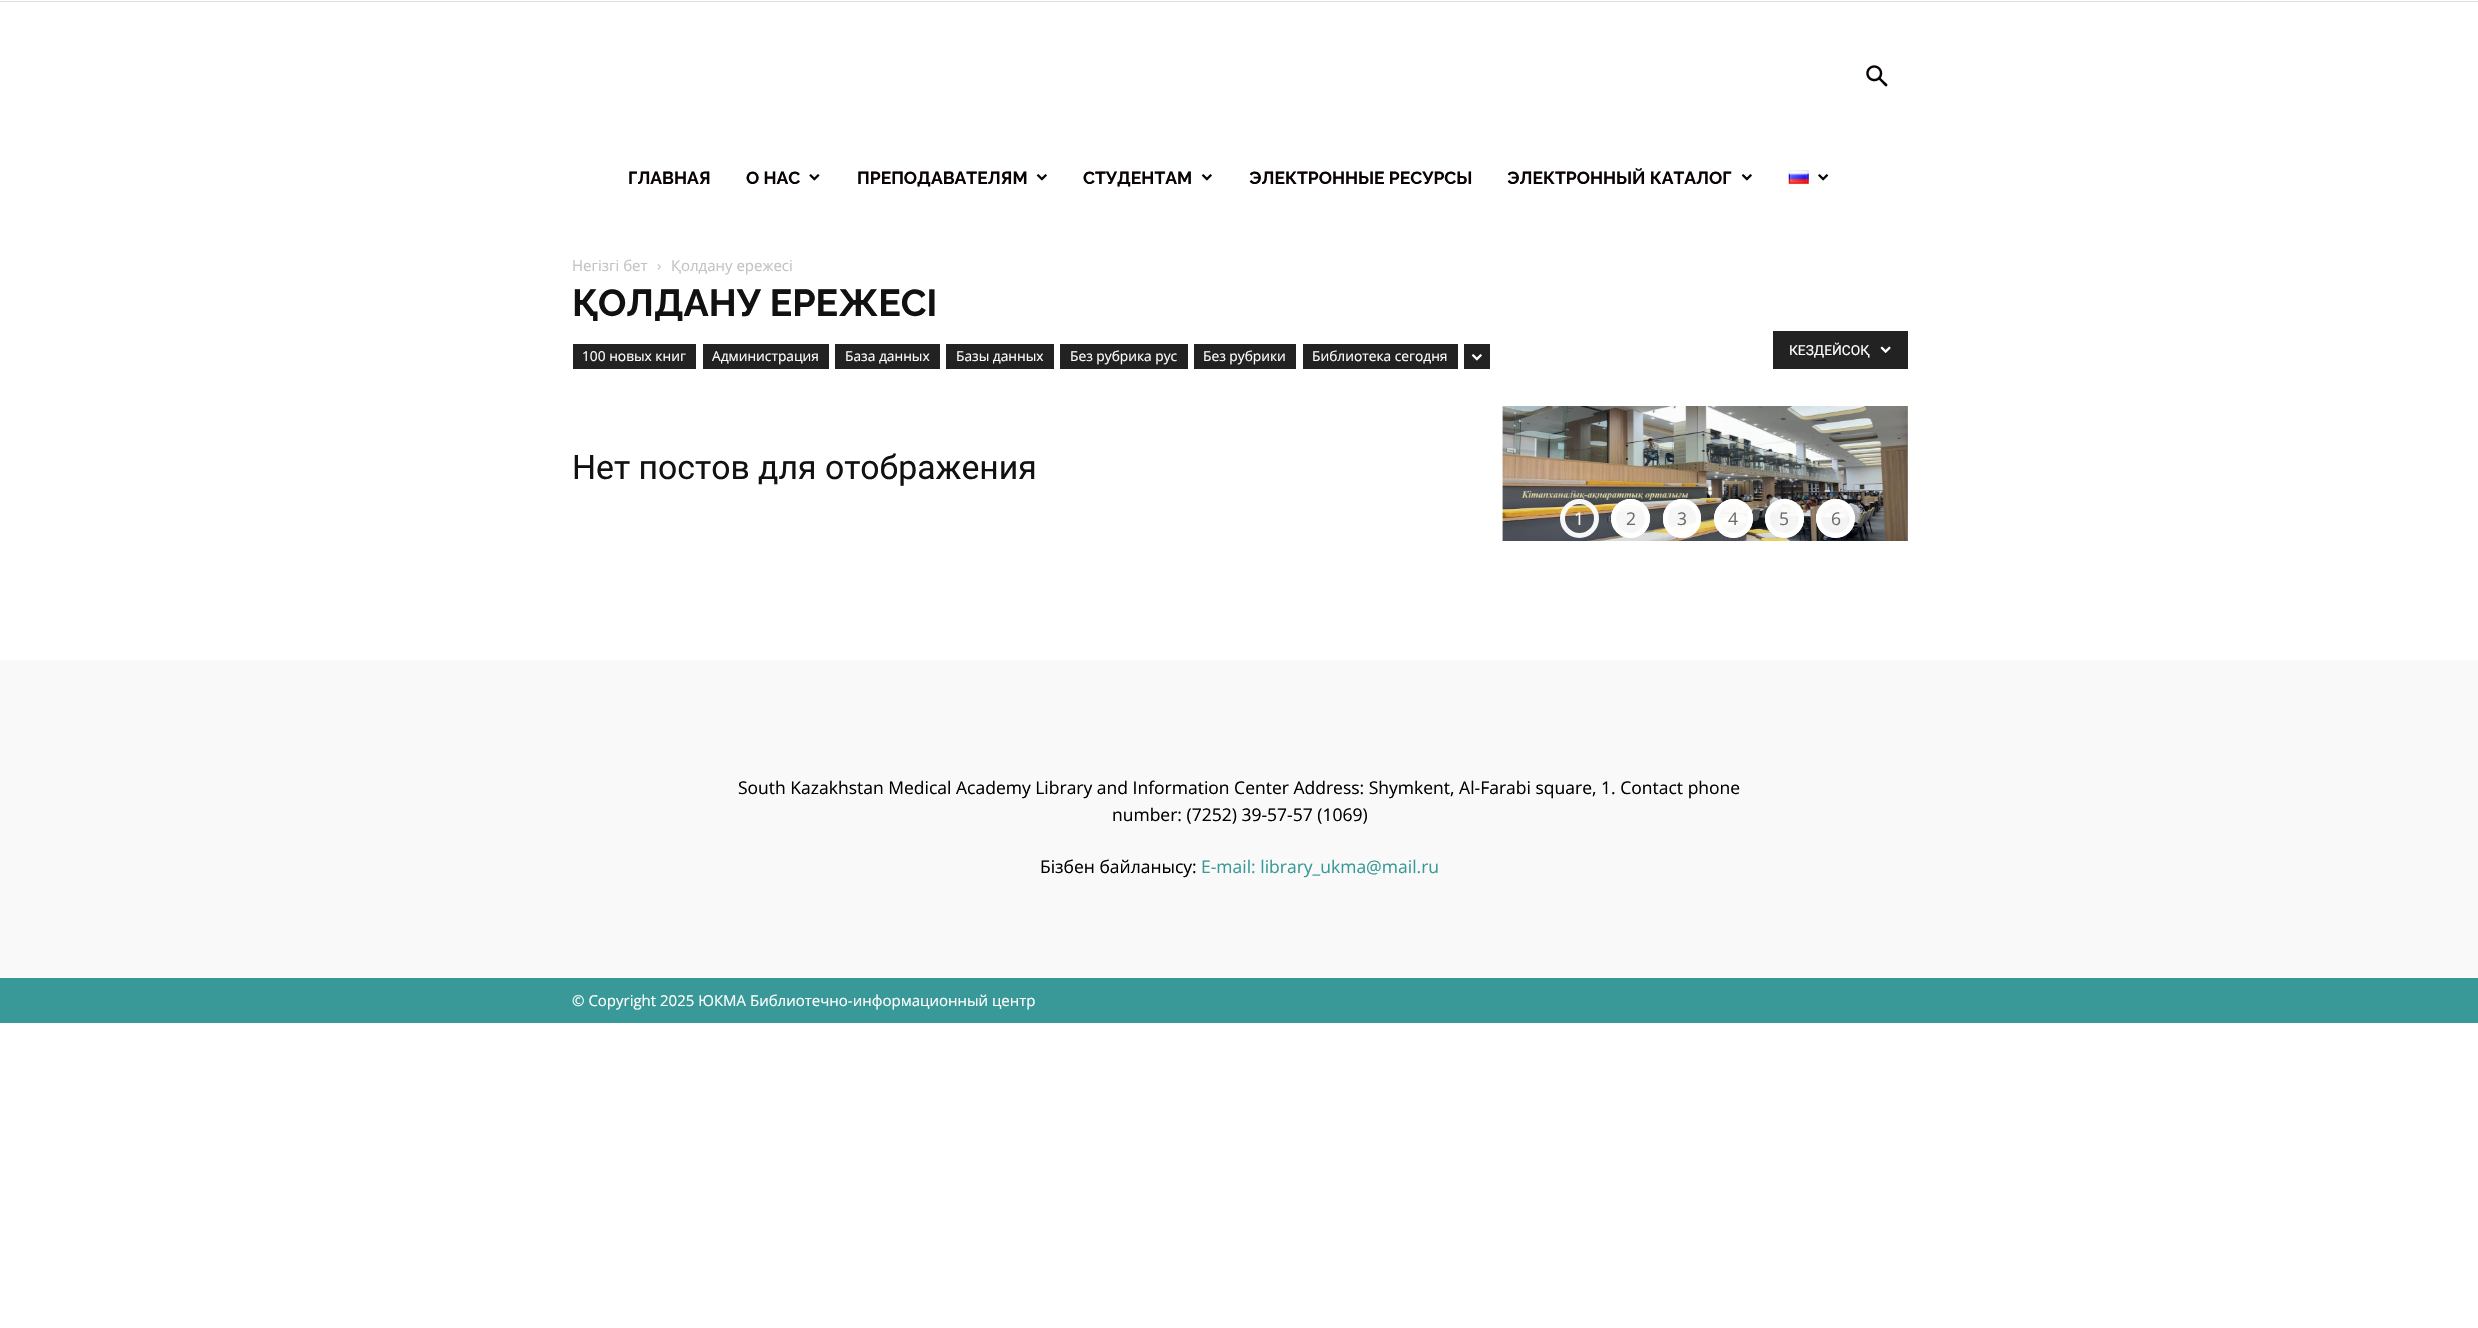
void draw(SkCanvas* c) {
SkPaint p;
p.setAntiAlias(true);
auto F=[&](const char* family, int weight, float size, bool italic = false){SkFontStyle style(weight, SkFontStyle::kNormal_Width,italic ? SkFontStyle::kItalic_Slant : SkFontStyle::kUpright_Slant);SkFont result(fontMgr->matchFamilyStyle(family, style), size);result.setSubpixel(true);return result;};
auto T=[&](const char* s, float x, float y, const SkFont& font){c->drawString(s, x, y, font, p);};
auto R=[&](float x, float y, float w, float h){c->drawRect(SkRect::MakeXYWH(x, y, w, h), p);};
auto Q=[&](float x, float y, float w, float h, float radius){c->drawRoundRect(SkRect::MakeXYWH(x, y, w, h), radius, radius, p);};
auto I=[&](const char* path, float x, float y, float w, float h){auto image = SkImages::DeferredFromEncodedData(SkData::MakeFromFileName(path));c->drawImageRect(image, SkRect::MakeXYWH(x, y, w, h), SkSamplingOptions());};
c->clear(0xffffffff);
p.setColor(0xffe0e0e0);
R(0,1,2478,1);
I("1.png",1866,65,22,22);
auto f1 = F("Raleway",700,17.5);
p.setColor(0xff0a0303);
T("ГЛАВНАЯ",628,184,f1);
T("О НАС",746,184,f1);
I("2.png",809,174,11,7);
T("ПРЕПОДАВАТЕЛЯМ",857,184,f1);
I("3.png",1036,174,11,7);
T("СТУДЕНТАМ",1083,184,f1);
I("3.png",1201,174,11,7);
T("ЭЛЕКТРОННЫЕ РЕСУРСЫ",1249,184,f1);
T("ЭЛЕКТРОННЫЙ КАТАЛОГ",1507,184,f1);
I("3.png",1741,174,11,7);
I("4.png",1788,170,21,14);
I("5.png",1818,174,11,7);
auto f2 = F("Open Sans",400,15);
p.setColor(0xffc3c3c3);
T("Негізгі бет",572,271,f2);
I("6.png",657,264,4,6);
T("Қолдану ережесі",671,271,f2);
auto f3 = F("Raleway",700,37.5);
p.setColor(0xff111111);
T("ҚОЛДАНУ ЕРЕЖЕСІ",572,316,f3);
p.setColor(0xff222222);
R(573,344,123,25);
auto f4 = F("Open Sans",400,13.75);
p.setColor(0xffffffff);
T("100 новых книг",582,361,f4);
p.setColor(0xff222222);
R(703,344,126,25);
p.setColor(0xffffffff);
T("Администрация",712,361,f4);
p.setColor(0xff222222);
R(835,344,105,25);
p.setColor(0xffffffff);
T("База данных",845,361,f4);
p.setColor(0xff222222);
R(946,344,108,25);
p.setColor(0xffffffff);
T("Базы данных",956,361,f4);
p.setColor(0xff222222);
R(1060,344,128,25);
p.setColor(0xffffffff);
T("Без рубрика рус",1070,361,f4);
p.setColor(0xff222222);
R(1194,344,102,25);
p.setColor(0xffffffff);
T("Без рубрики",1203,361,f4);
p.setColor(0xff222222);
R(1303,344,155,25);
p.setColor(0xffffffff);
T("Библиотека сегодня",1312,361,f4);
p.setColor(0xff222222);
R(1464,344,26,25);
I("7.png",1471,354,11,7);
R(1773,331,135,38);
auto f5 = F("Roboto",400,13.75);
p.setColor(0xffffffff);
T("КЕЗДЕЙСОҚ",1789,355,f5);
I("8.png",1880,346,11,7);
auto f6 = F("Roboto",400,33.75);
p.setColor(0xff111111);
T("Нет постов для отображения",572,479,f6);
I("9.png",1502,406,406,135);
p.setStroke(true);
p.setStrokeWidth(5);
p.setColor(0xf2ffffff);
c->drawCircle(1579.5,518.5,17,p);
auto f7 = F("Open Sans",400,17.5);
p.setStroke(false);
p.setColor(0xfff8f8f7);
T("1",1574,525,f7);
p.setColor(0xf2ffffff);
c->drawCircle(1630.5,518.5,19.5,p);
p.setStroke(true);
c->drawCircle(1630.5,518.5,17,p);
p.setStroke(false);
p.setColor(0xff6c6c6c);
T("2",1626,525,f7);
p.setColor(0xf2ffffff);
Q(1663,499,38,39,19);
p.setStroke(true);
c->drawRoundRect(SkRect::MakeXYWH(1665.5,501.5,33,34),16.5,16.5,p);
p.setStroke(false);
p.setColor(0xff6c6c6c);
T("3",1677,525,f7);
p.setColor(0xf2ffffff);
c->drawCircle(1733.5,518.5,19.5,p);
p.setStroke(true);
c->drawCircle(1733.5,518.5,17,p);
p.setStroke(false);
p.setColor(0xff6c6c6c);
T("4",1728,525,f7);
p.setColor(0xf2ffffff);
c->drawCircle(1784.5,518.5,19.5,p);
p.setStroke(true);
c->drawCircle(1784.5,518.5,17,p);
p.setStroke(false);
p.setColor(0xff6c6c6c);
T("5",1779,525,f7);
p.setColor(0xf2ffffff);
c->drawCircle(1835.5,518.5,19.5,p);
p.setStroke(true);
c->drawCircle(1835.5,518.5,17,p);
p.setStroke(false);
p.setColor(0xff6c6c6c);
T("6",1831,525,f7);
p.setColor(0xfff9f9f9);
R(0,660,2478,318);
p.setColor(0xff000000);
T("South Kazakhstan Medical Academy Library and Information Center Address: Shymkent, Al-Farabi square, 1. Contact phone",738,794,f7);
T("number: (7252) 39-57-57 (1069)",1112,821,f7);
T("Бізбен байланысу:",1040,873,f7);
p.setColor(0xff399998);
T("E-mail: library_ukma@mail.ru",1201,873,f7);
R(0,978,2478,45);
p.setColor(0xffffffff);
T("© Copyright 2025 ЮКМА Библиотечно-информационный центр",572,1006,f2);
}
